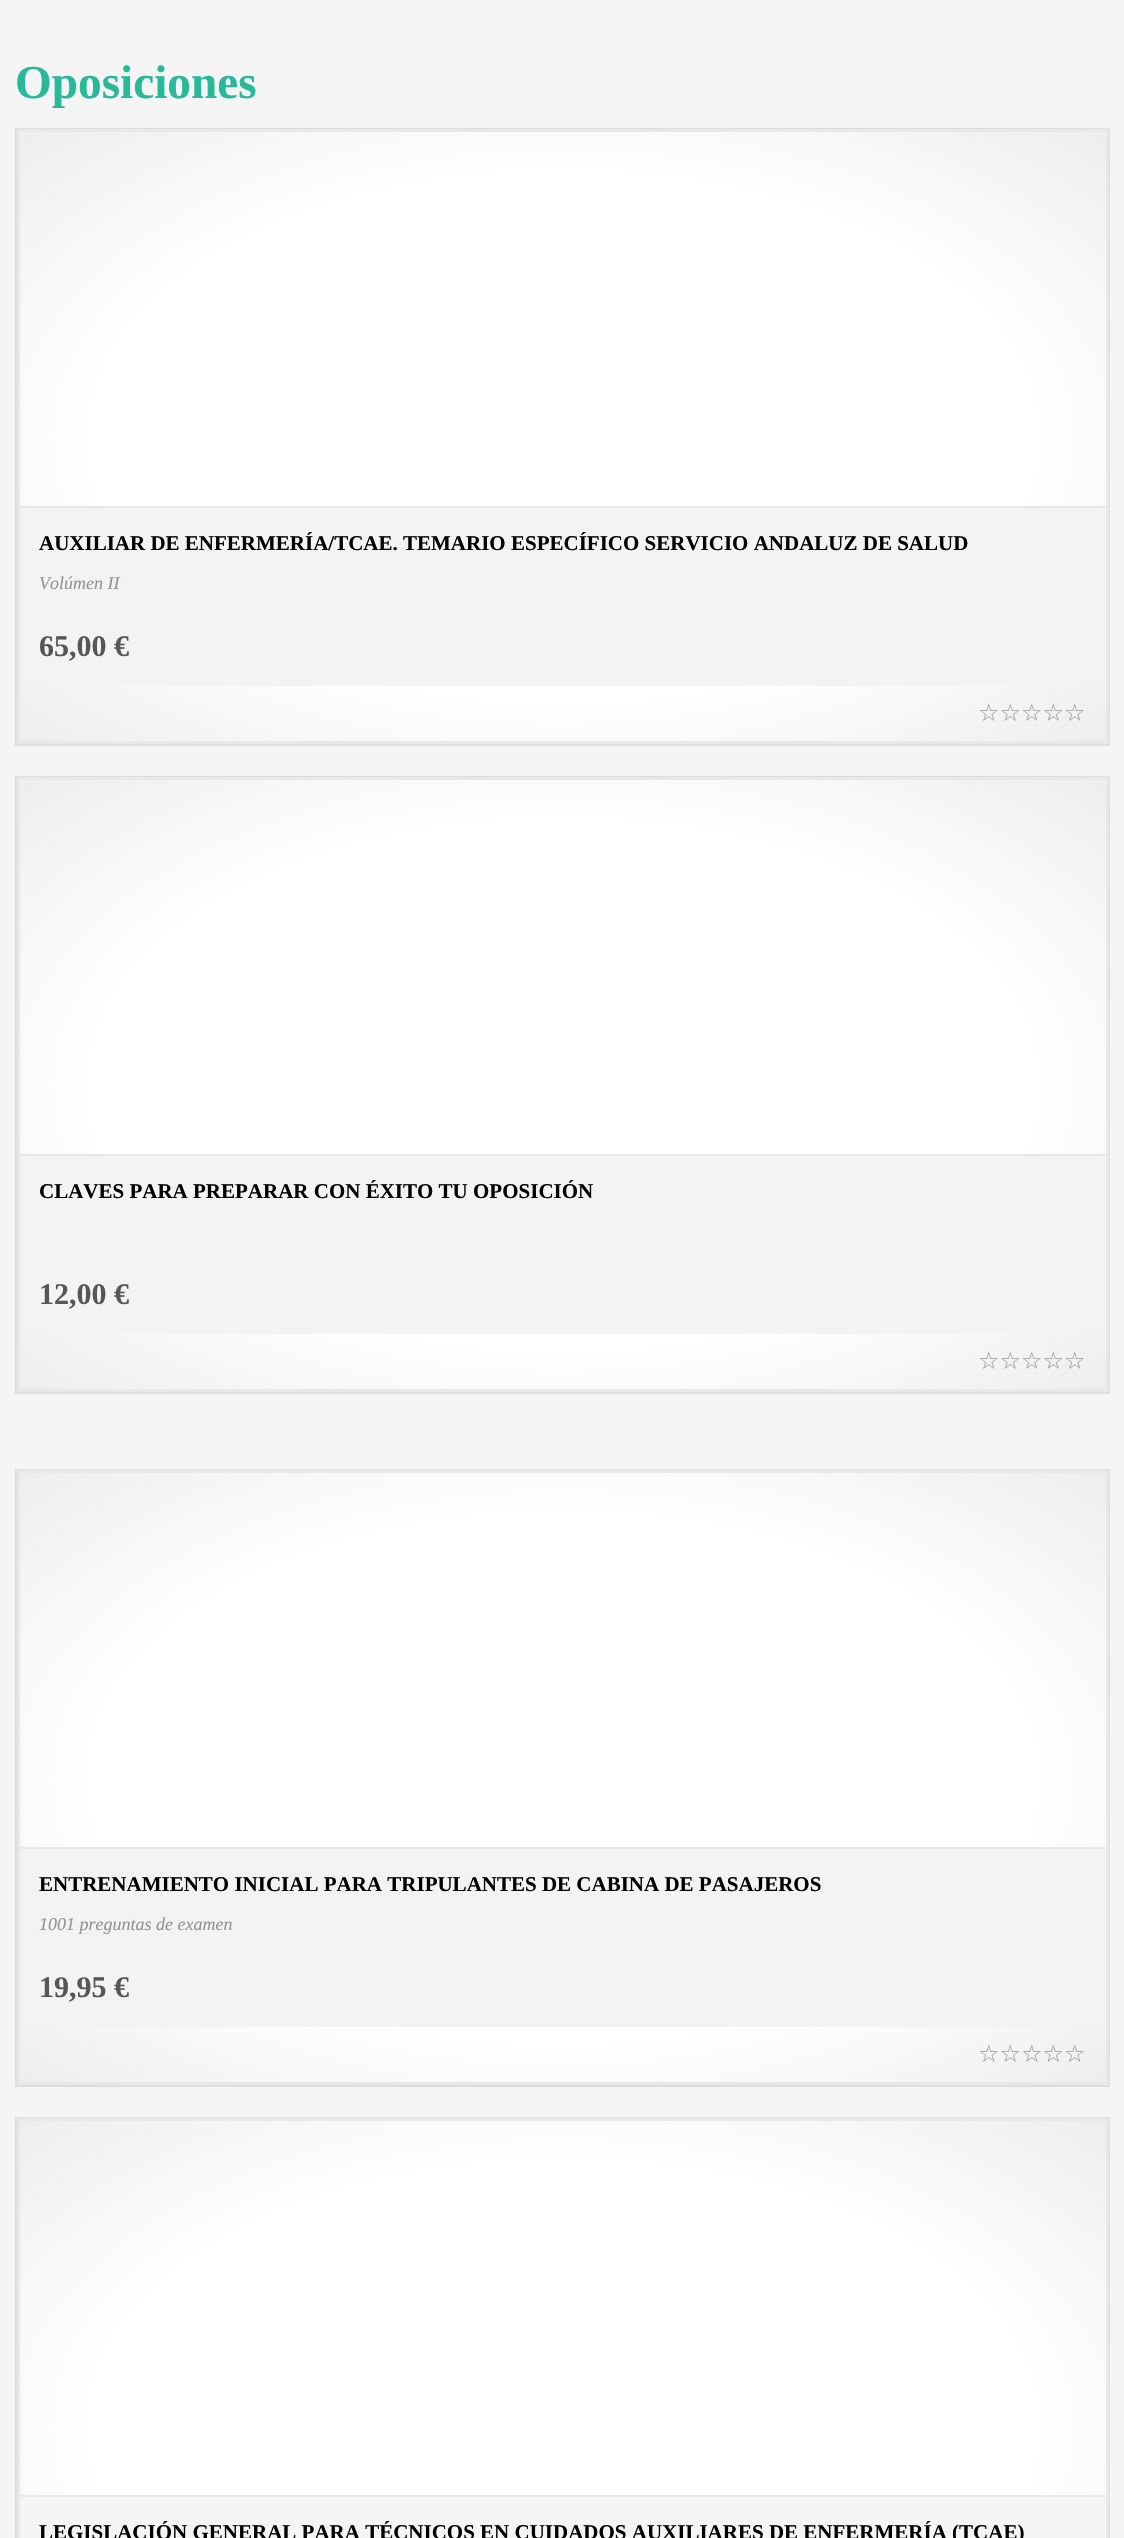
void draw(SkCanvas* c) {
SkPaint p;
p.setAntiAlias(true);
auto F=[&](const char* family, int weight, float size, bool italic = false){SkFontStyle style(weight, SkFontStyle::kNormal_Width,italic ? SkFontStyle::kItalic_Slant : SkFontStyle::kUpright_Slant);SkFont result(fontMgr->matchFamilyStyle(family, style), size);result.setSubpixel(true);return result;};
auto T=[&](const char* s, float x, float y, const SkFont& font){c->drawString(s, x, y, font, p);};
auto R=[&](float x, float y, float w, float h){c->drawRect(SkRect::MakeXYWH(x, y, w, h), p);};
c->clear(0xfff5f5f5);
auto f1 = F("Liberation Serif",700,47.25);
p.setColor(0xff27b999);
T("Oposiciones",15,98,f1);
p.setStroke(true);
p.setStrokeWidth(2);
p.setColor(0xffdddddd);
c->drawRect(SkRect::MakeXYWH(16,129,1093,616),p);
p.setStroke(false);
{
const SkColor colors[] = {0xffffffff,0xffededed};
const float stops[] = {.61,1};
SkMatrix m = SkMatrix::Translate(563,437).preScale(772,435);
p.setShader(SkGradientShader::MakeRadial({0, 0}, 1, colors, stops, 2, SkTileMode::kClamp, 0, &m));
p.setAlpha(255);
}
R(20,132,1086,609);
p.setShader(nullptr);
p.setColor(0xfff3f3f3);
R(20,508,1086,178);
p.setColor(0xffe8e8e8);
R(17,506,1092,2);
p.setStroke(true);
p.setStrokeWidth(3);
c->drawRect(SkRect::MakeXYWH(18.5,130.5,1089,612),p);
auto f2 = F("Liberation Serif",700,21);
p.setStroke(false);
p.setColor(0xff000000);
T("AUXILIAR DE ENFERMERÍA/TCAE. TEMARIO ESPECÍFICO SERVICIO ANDALUZ DE SALUD",39,550,f2);
auto f3 = F("Liberation Serif",400,18,true);
p.setColor(0xff939393);
T("Volúmen II",39,589,f3);
auto f4 = F("Liberation Serif",700,30);
p.setColor(0xff565656);
T("65,00 €",39,656,f4);
auto f5 = F("DejaVu Sans",400,24);
p.setColor(0xffa0a0a0);
T("☆☆☆☆☆",978,721,f5);
p.setStroke(true);
p.setStrokeWidth(2);
p.setColor(0xffdddddd);
c->drawRect(SkRect::MakeXYWH(16,777,1093,616),p);
p.setStroke(false);
{
const SkColor colors[] = {0xffffffff,0xffededed};
const float stops[] = {.61,1};
SkMatrix m = SkMatrix::Translate(563,1085).preScale(772,435);
p.setShader(SkGradientShader::MakeRadial({0, 0}, 1, colors, stops, 2, SkTileMode::kClamp, 0, &m));
p.setAlpha(255);
}
R(20,780,1086,609);
p.setShader(nullptr);
p.setColor(0xfff3f3f3);
R(20,1156,1086,178);
p.setColor(0xffe8e8e8);
R(17,1154,1092,2);
p.setStroke(true);
p.setStrokeWidth(3);
c->drawRect(SkRect::MakeXYWH(18.5,778.5,1089,612),p);
p.setStroke(false);
p.setColor(0xff000000);
T("CLAVES PARA PREPARAR CON ÉXITO TU OPOSICIÓN",39,1198,f2);
p.setColor(0xff565656);
T("12,00 €",39,1304,f4);
p.setColor(0xffa0a0a0);
T("☆☆☆☆☆",978,1369,f5);
p.setStroke(true);
p.setStrokeWidth(2);
p.setColor(0xffdddddd);
c->drawRect(SkRect::MakeXYWH(16,1470,1093,616),p);
p.setStroke(false);
{
const SkColor colors[] = {0xffffffff,0xffededed};
const float stops[] = {.61,1};
SkMatrix m = SkMatrix::Translate(563,1778).preScale(772,435);
p.setShader(SkGradientShader::MakeRadial({0, 0}, 1, colors, stops, 2, SkTileMode::kClamp, 0, &m));
p.setAlpha(255);
}
R(20,1473,1086,609);
p.setShader(nullptr);
p.setColor(0xfff3f3f3);
R(20,1849,1086,178);
p.setColor(0xffe8e8e8);
R(17,1847,1092,2);
p.setStroke(true);
p.setStrokeWidth(3);
c->drawRect(SkRect::MakeXYWH(18.5,1471.5,1089,612),p);
p.setStroke(false);
p.setColor(0xff000000);
T("ENTRENAMIENTO INICIAL PARA TRIPULANTES DE CABINA DE PASAJEROS",39,1891,f2);
p.setColor(0xff939393);
T("1001 preguntas de examen",39,1930,f3);
p.setColor(0xff565656);
T("19,95 €",39,1997,f4);
p.setColor(0xffa0a0a0);
T("☆☆☆☆☆",978,2062,f5);
p.setStroke(true);
p.setStrokeWidth(2);
p.setColor(0xffdddddd);
c->drawRect(SkRect::MakeXYWH(16,2118,1093,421),p);
p.setStroke(false);
{
const SkColor colors[] = {0xffffffff,0xffededed};
const float stops[] = {.61,1};
SkMatrix m = SkMatrix::Translate(563,2426).preScale(772,435);
p.setShader(SkGradientShader::MakeRadial({0, 0}, 1, colors, stops, 2, SkTileMode::kClamp, 0, &m));
p.setAlpha(255);
}
R(20,2121,1086,374);
p.setShader(nullptr);
p.setColor(0xffe8e8e8);
R(17,2495,1092,2);
p.setStroke(true);
p.setStrokeWidth(3);
c->drawRect(SkRect::MakeXYWH(18.5,2119.5,1089,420),p);
p.setStroke(false);
p.setColor(0xff000000);
T("LEGISLACIÓN GENERAL PARA TÉCNICOS EN CUIDADOS AUXILIARES DE ENFERMERÍA (TCAE)",39,2539,f2);
}
